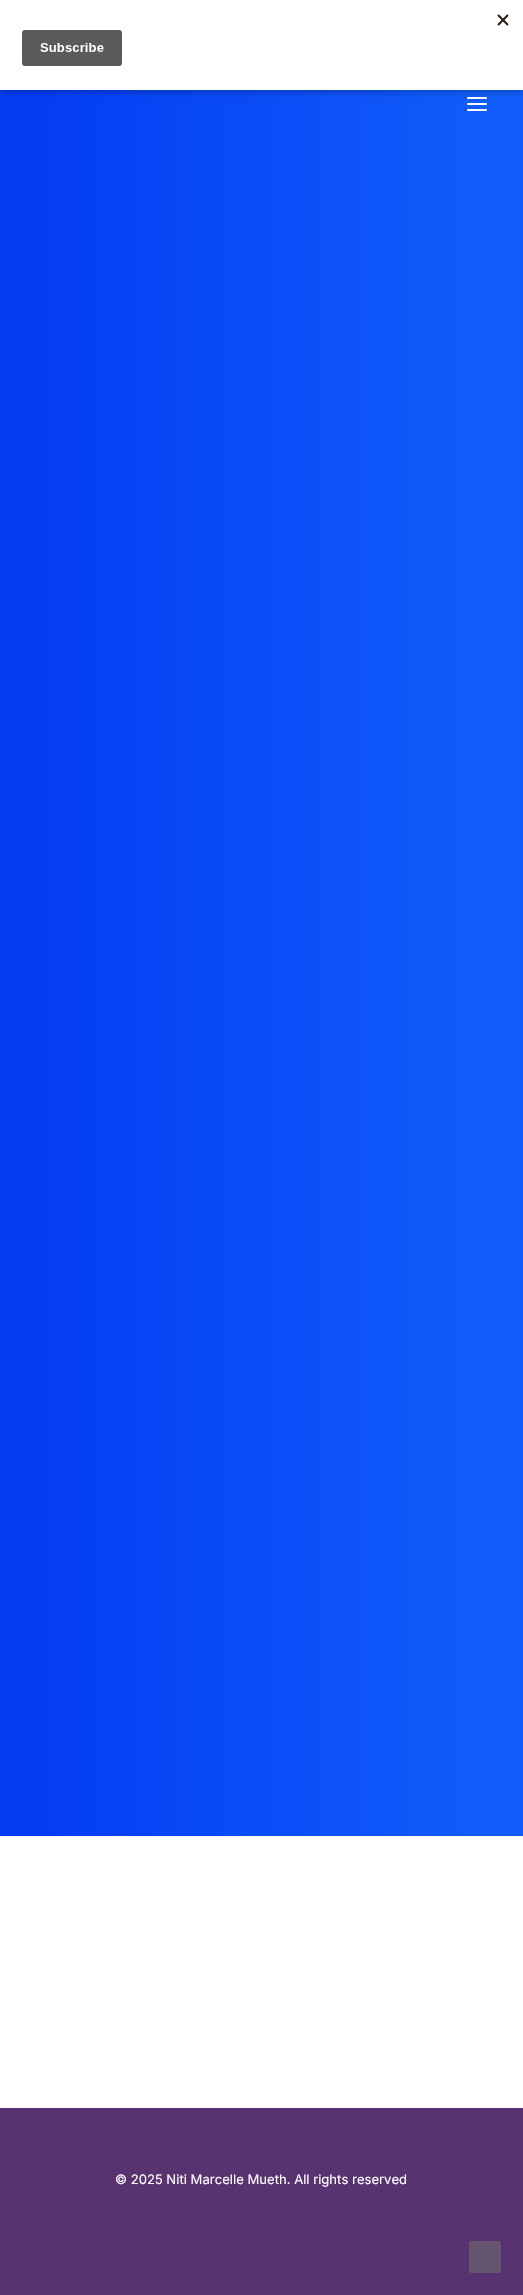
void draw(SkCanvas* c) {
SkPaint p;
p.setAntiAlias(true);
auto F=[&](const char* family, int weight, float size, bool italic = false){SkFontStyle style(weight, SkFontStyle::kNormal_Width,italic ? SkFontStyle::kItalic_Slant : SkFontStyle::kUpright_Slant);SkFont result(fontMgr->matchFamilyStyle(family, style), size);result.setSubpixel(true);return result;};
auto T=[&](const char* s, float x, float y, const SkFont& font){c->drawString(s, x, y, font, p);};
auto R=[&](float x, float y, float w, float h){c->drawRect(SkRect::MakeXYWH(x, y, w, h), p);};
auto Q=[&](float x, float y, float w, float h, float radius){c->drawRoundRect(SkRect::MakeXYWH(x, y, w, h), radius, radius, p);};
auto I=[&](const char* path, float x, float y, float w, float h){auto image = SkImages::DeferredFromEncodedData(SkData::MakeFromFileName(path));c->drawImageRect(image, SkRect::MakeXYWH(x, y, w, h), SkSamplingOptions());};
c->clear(0xff593270);
{
const SkColor colors[] = {0xff115cfa,0xff053df5};
const float stops[] = {.09,.91};
const SkPoint ends[] = {{523,918}, {0,918}};
p.setShader(SkGradientShader::MakeLinear(ends, colors, stops, 2, SkTileMode::kClamp));
p.setAlpha(255);
}
R(0,90,523,1746);
p.setShader(nullptr);
p.setColor(0xffffffff);
Q(467,97,20,2,1);
p.setColor(0x33000000);
p.setMaskFilter(SkMaskFilter::MakeBlur(kNormal_SkBlurStyle, 3));
c->drawRect(SkRect::MakeXYWH(0,3,523,90),p);
p.setMaskFilter(nullptr);
p.setColor(0xffffffff);
R(0,0,523,90);
I("1.png",22,14,487,52);
Q(467,103,20,2,1);
Q(467,109,20,2,1);
R(0,1836,523,272);
auto f1 = F("Inter",400,13.1);
T("© 2025 Niti Marcelle Mueth. All rights reserved",115,2184,f1);
p.setColor(0xff655570);
c->drawRoundRect(SkRect::MakeXYWH(469.5,2241.5,31,31),1.5,1.5,p);
p.setStroke(true);
p.setStrokeWidth(1);
c->drawRoundRect(SkRect::MakeXYWH(469.5,2241.5,31,31),1.5,1.5,p);
}
